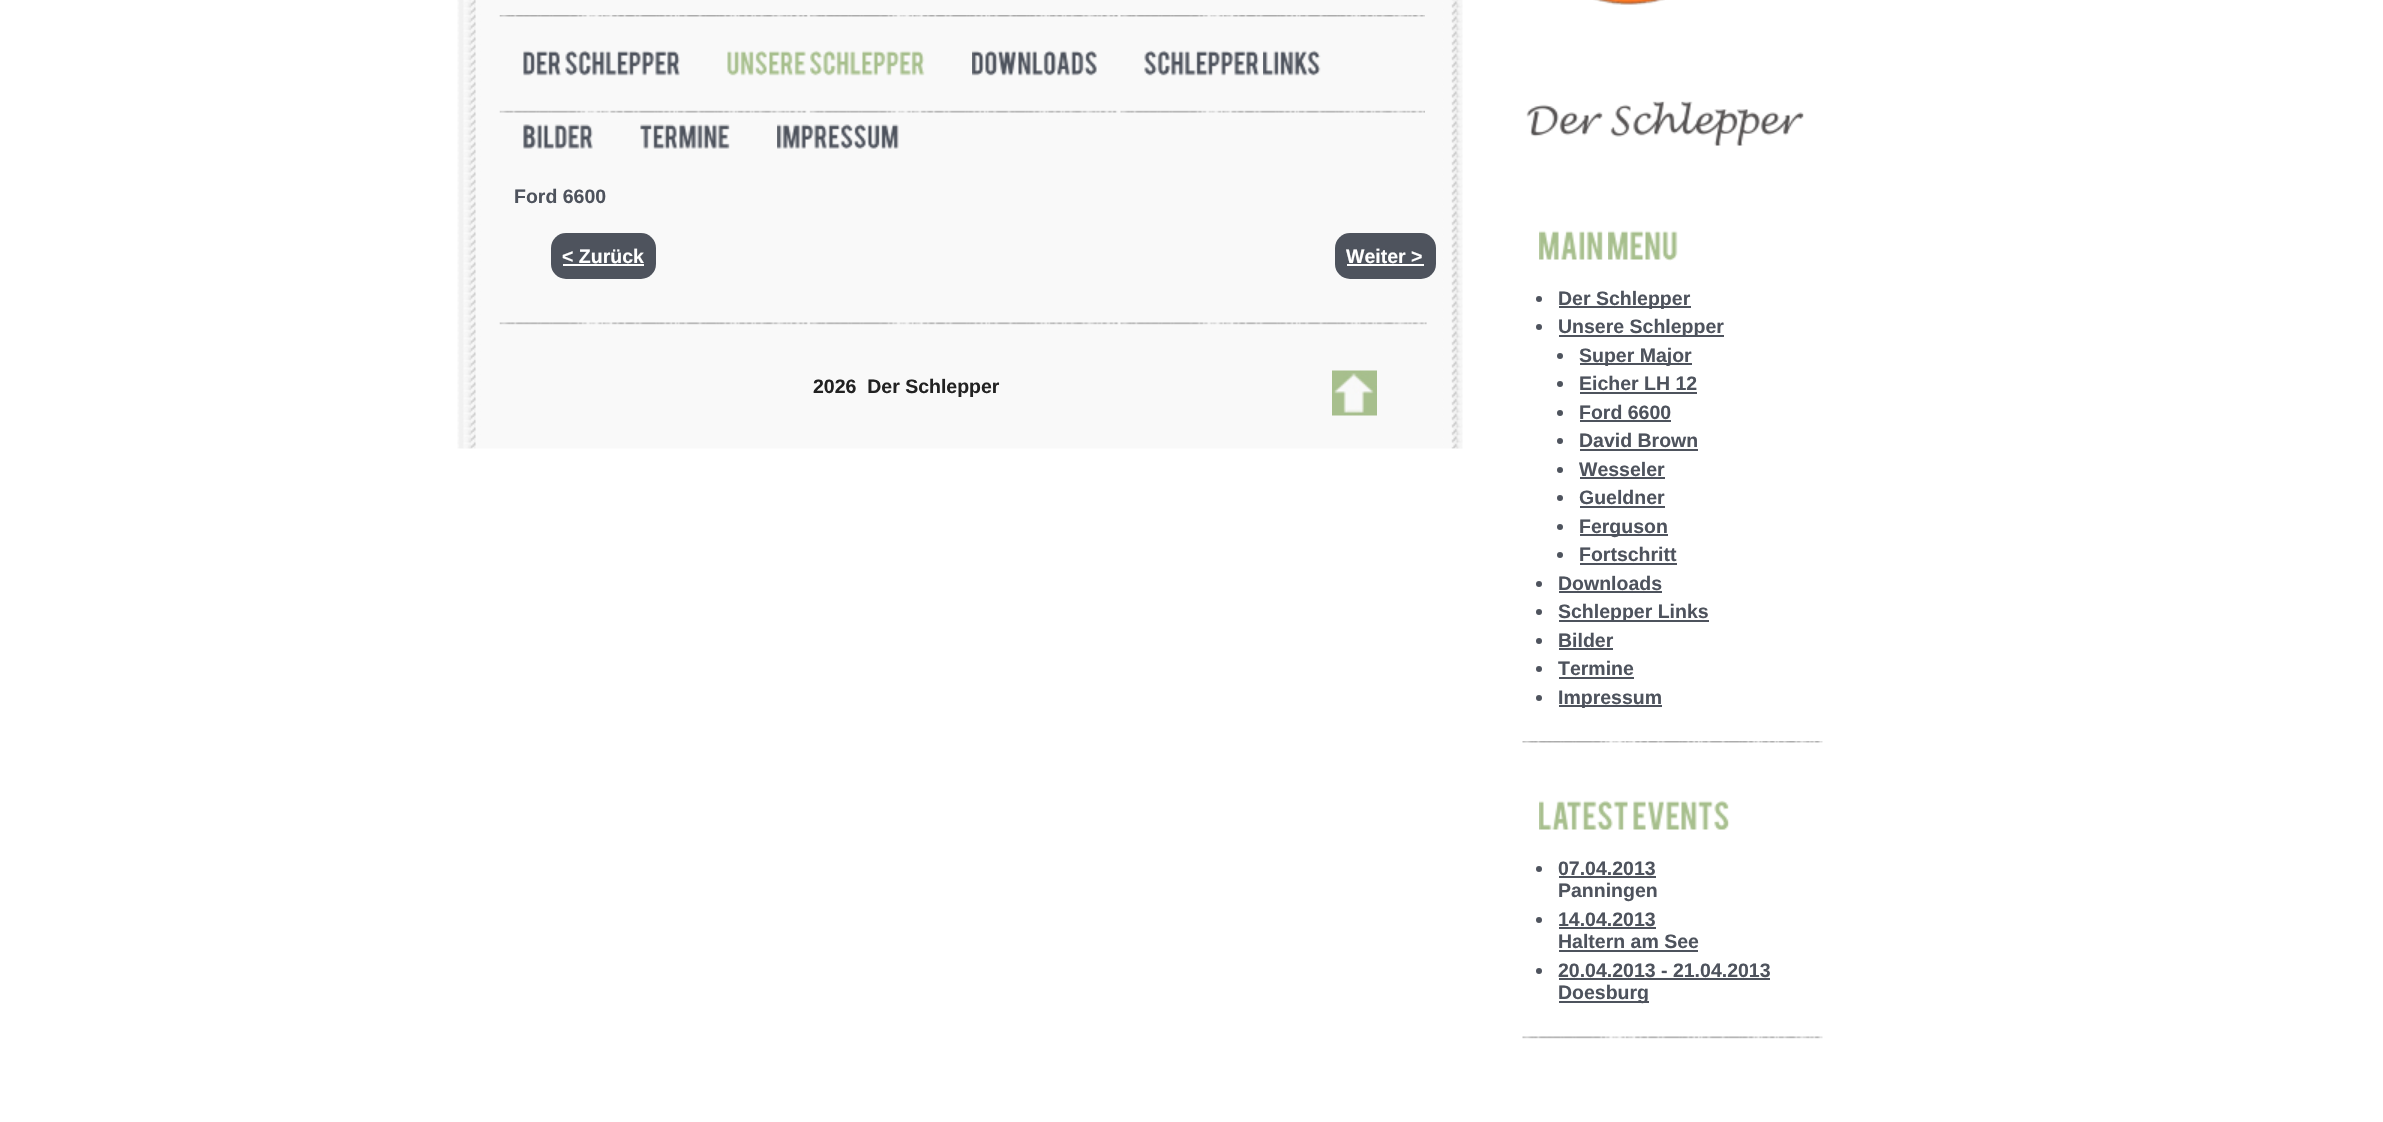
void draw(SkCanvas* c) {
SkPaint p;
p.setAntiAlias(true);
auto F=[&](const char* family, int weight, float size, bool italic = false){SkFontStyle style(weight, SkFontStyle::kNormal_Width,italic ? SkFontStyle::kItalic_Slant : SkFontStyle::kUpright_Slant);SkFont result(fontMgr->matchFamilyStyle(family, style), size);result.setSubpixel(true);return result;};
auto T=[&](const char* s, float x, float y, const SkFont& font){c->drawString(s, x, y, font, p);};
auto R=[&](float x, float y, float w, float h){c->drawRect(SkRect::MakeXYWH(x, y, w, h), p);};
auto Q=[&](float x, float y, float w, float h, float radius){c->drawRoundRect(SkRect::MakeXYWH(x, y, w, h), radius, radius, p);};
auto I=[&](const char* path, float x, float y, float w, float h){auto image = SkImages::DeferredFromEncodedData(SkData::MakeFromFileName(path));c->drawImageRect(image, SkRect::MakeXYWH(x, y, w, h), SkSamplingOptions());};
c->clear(0xffffffff);
I("1.png",457,0,1006,449);
I("2.png",499,15,926,98);
I("3.png",523,50,39,26);
I("4.png",565,50,115,26);
I("5.png",727,50,79,26);
I("6.png",810,50,115,26);
I("7.png",972,50,125,26);
I("4.png",1144,50,115,26);
I("8.png",1263,50,58,26);
I("9.png",523,124,70,25);
I("10.png",640,124,90,25);
I("11.png",777,124,122,25);
auto f1 = F("Liberation Sans",700,19.5);
p.setColor(0xff4e535d);
T("Ford 6600",514,203,f1);
Q(551,233,105,46,15);
p.setColor(0xffffffff);
T("< Zurück",562,263,f1);
R(563,264,81,2);
p.setColor(0xff4e535d);
Q(1335,233,101,46,15);
p.setColor(0xffffffff);
T("Weiter >",1346,263,f1);
R(1347,264,77,2);
I("12.png",499,322,928,3);
p.setColor(0xff222222);
T("2026  Der Schlepper",813,393,f1);
I("13.png",1332,370,45,46);
I("14.png",1593,0,72,5);
I("15.png",1526,101,278,45);
I("16.png",1522,741,301,2);
I("17.png",1539,230,64,30);
I("18.png",1608,230,70,31);
p.setColor(0xff4e535d);
c->drawCircle(1539,299,3,p);
R(1559,306,132,2);
T("Der Schlepper",1558,305,f1);
c->drawCircle(1539,327,3,p);
R(1559,335,165,2);
T("Unsere Schlepper",1558,333,f1);
c->drawCircle(1560,356,3,p);
R(1580,363,112,2);
T("Super Major",1579,362,f1);
c->drawCircle(1560,384,3,p);
T("Eicher LH 12",1579,390,f1);
R(1580,392,117,2);
c->drawCircle(1560,413,3,p);
T("Ford 6600",1579,419,f1);
R(1580,420,91,2);
c->drawCircle(1560,441,3,p);
T("David Brown",1579,447,f1);
R(1580,449,118,2);
c->drawCircle(1560,470,3,p);
T("Wesseler",1579,476,f1);
R(1580,477,85,2);
c->drawCircle(1560,498,3,p);
T("Gueldner",1579,504,f1);
R(1580,506,85,2);
c->drawCircle(1560,527,3,p);
R(1580,534,88,2);
T("Ferguson",1579,533,f1);
c->drawCircle(1560,555,3,p);
T("Fortschritt",1579,561,f1);
R(1580,563,97,2);
c->drawCircle(1539,584,3,p);
T("Downloads",1558,590,f1);
R(1559,591,103,2);
c->drawCircle(1539,612,3,p);
R(1559,620,150,2);
T("Schlepper Links",1558,618,f1);
c->drawCircle(1539,641,3,p);
T("Bilder",1558,647,f1);
R(1559,648,54,2);
c->drawCircle(1539,669,3,p);
T("Termine",1558,675,f1);
R(1559,677,75,2);
c->drawCircle(1539,698,3,p);
R(1559,705,103,2);
T("Impressum",1558,704,f1);
I("19.png",1522,1036,301,3);
I("20.png",1539,800,89,30);
I("21.png",1633,800,97,30);
c->drawCircle(1539,869,3,p);
T("07.04.2013",1558,875,f1);
R(1559,876,97,2);
T("Panningen",1558,897,f1);
c->drawCircle(1539,920,3,p);
T("14.04.2013",1558,926,f1);
R(1559,927,97,2);
T("Haltern am See",1558,948,f1);
R(1559,950,139,2);
c->drawCircle(1539,971,3,p);
T("20.04.2013 - 21.04.2013",1558,977,f1);
R(1559,978,211,2);
R(1559,1001,90,2);
T("Doesburg",1558,999,f1);
}
